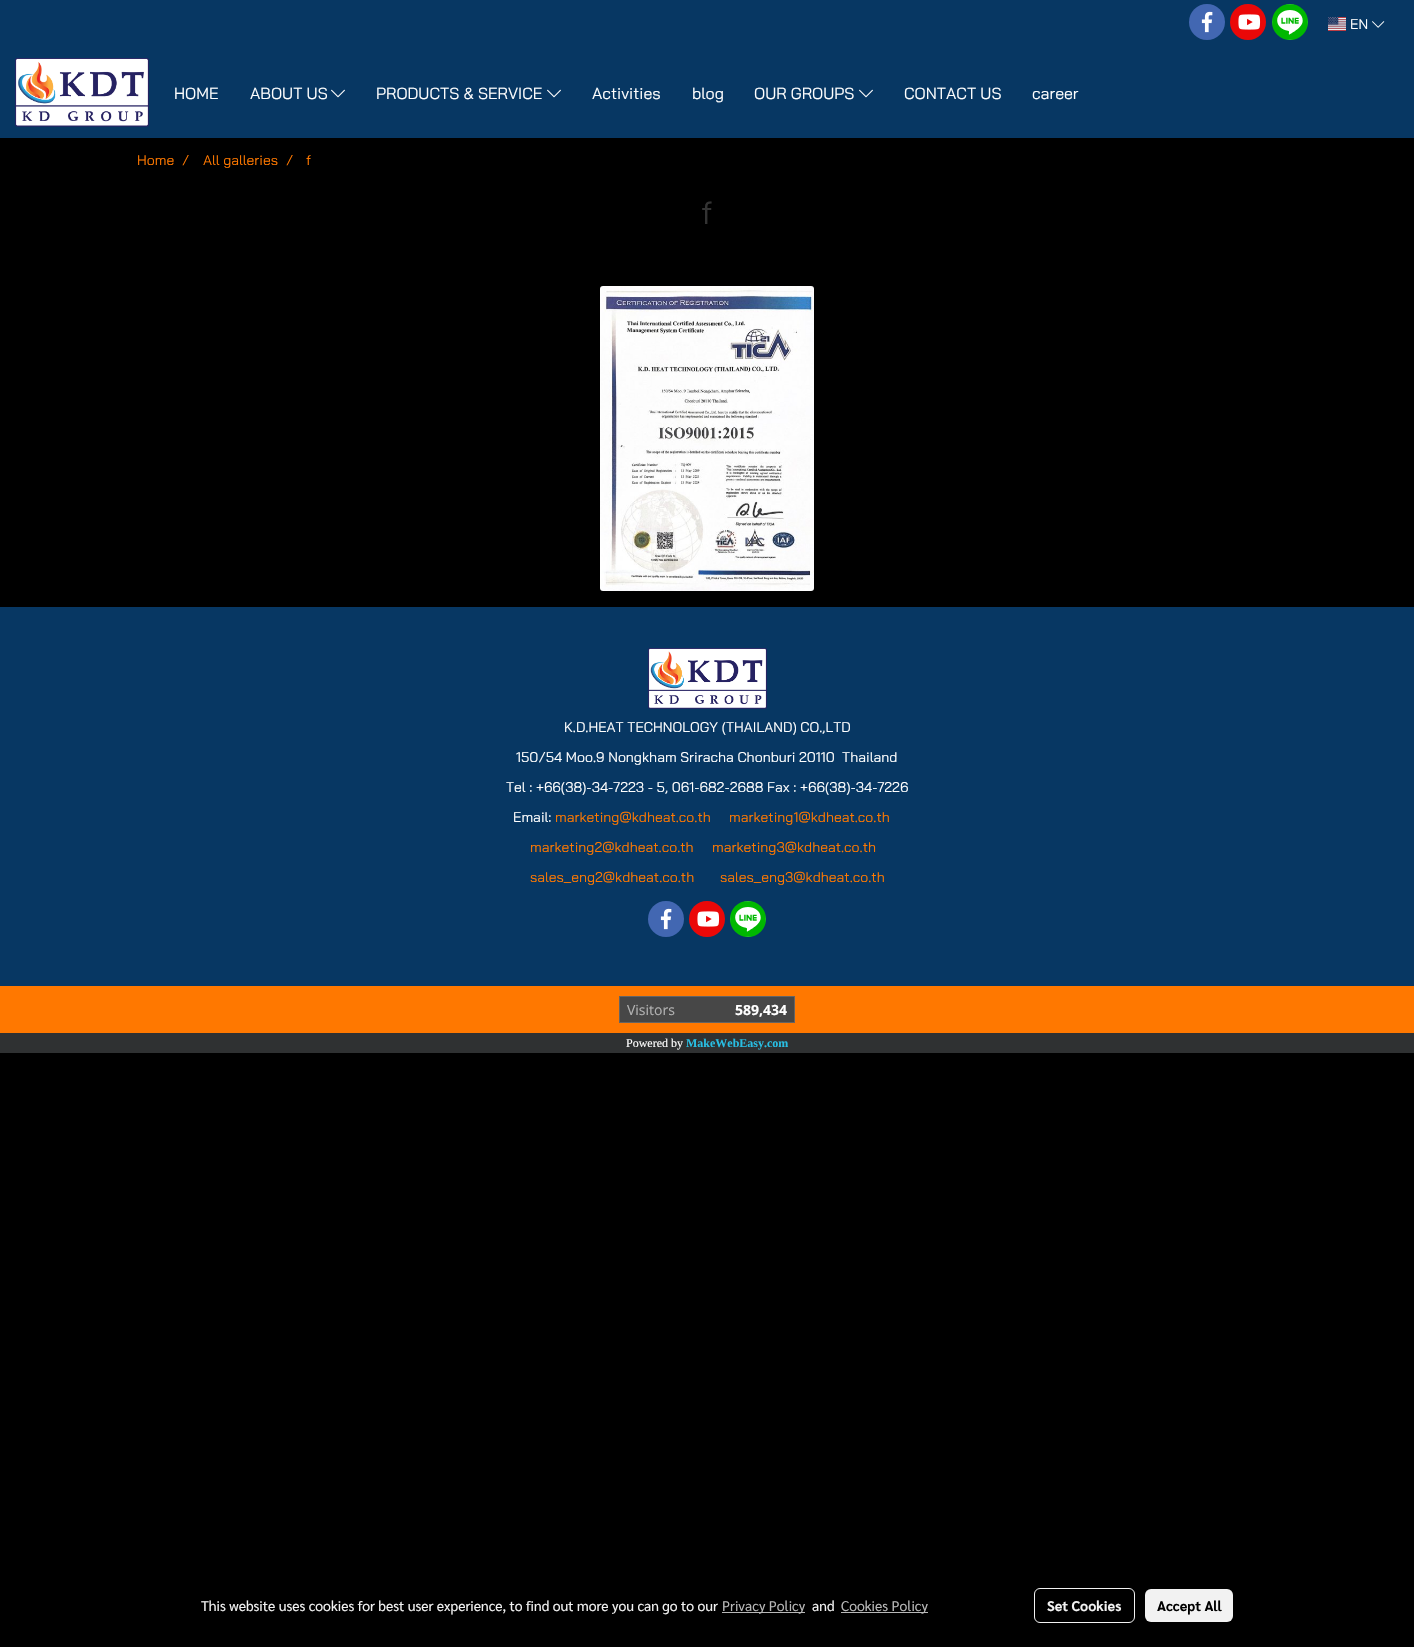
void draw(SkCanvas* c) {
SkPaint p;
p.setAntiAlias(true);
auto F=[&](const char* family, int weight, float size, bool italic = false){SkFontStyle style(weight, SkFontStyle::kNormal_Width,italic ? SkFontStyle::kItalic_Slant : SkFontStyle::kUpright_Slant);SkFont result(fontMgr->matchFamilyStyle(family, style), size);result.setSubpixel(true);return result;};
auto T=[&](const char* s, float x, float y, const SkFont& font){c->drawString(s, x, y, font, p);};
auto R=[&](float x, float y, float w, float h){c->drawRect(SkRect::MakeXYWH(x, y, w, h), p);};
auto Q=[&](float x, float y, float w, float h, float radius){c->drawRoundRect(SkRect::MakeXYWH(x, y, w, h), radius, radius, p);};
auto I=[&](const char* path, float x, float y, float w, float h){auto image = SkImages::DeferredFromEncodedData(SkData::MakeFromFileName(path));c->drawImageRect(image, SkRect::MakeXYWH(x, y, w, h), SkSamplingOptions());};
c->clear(0xff000000);
p.setColor(0xff073763);
R(0,0,1414,138);
p.setColor(0xff4267b2);
c->drawCircle(1207,22,18,p);
I("1.png",1201,11,12,22);
p.setColor(0xffeb0808);
c->drawCircle(1248,22,18,p);
I("2.png",1238,14,23,16);
p.setColor(0xff00b800);
c->drawCircle(1290,22,18,p);
I("3.png",1272,4,36,36);
I("4.png",1328,17,18,14);
auto f1 = F("Bai Jamjuree",400,14);
p.setColor(0xffffffff);
T("EN",1350,29,f1);
I("5.png",1372,21,13,7);
I("6.png",15,58,134,69);
auto f2 = F("Bai Jamjuree",400,16);
T("HOME",174,99,f2);
T("ABOUT US",250,99,f2);
I("7.png",331,89,14,9);
T("PRODUCTS & SERVICE",376,99,f2);
I("7.png",547,89,14,9);
T("Activities",592,99,f2);
T("blog",692,99,f2);
T("OUR GROUPS",754,99,f2);
I("7.png",859,89,14,9);
T("CONTACT US",904,99,f2);
T("career",1032,99,f2);
p.setColor(0xffff7800);
T("Home",137,165,f1);
T("/",182,165,f1);
T("All galleries",203,165,f1);
T("/",286,165,f1);
T("f",306,165,f1);
auto f3 = F("Bai Jamjuree",400,32);
p.setColor(0xff333333);
T("f",701,224,f3);
I("8.png",600,286,214,305);
p.setColor(0xff073763);
R(0,607,1414,379);
I("9.png",648,648,119,61);
p.setColor(0xffffffff);
T("K.D.HEAT TECHNOLOGY (THAILAND) CO.,LTD",564,732,f1);
T("150/54 Moo.9 Nongkham Sriracha Chonburi 20110  Thailand",516,762,f1);
T("Tel : +66(38)-34-7223 - 5, 061-682-2688 Fax : +66(38)-34-7226",506,792,f1);
T("Email:",513,822,f1);
p.setColor(0xffff7800);
T("marketing@kdheat.co.th",555,822,f1);
T("marketing1@kdheat.co.th",729,822,f1);
T("marketing2@kdheat.co.th",530,852,f1);
T("marketing3@kdheat.co.th",712,852,f1);
T("sales_eng2@kdheat.co.th",530,882,f1);
T("sales_eng3@kdheat.co.th",720,882,f1);
p.setColor(0xff4267b2);
c->drawCircle(666,919,18,p);
I("1.png",660,908,12,22);
p.setColor(0xffeb0808);
c->drawCircle(707,919,18,p);
I("2.png",697,911,23,16);
p.setColor(0xff00b800);
c->drawCircle(748,919,18,p);
I("10.png",730,901,36,36);
p.setColor(0xffff7800);
R(0,986,1414,47);
p.setColor(0xff474747);
c->drawRect(SkRect::MakeXYWH(619.5,996.5,175,26),p);
p.setStroke(true);
p.setStrokeWidth(1);
p.setColor(0xff646464);
c->drawRect(SkRect::MakeXYWH(619.5,996.5,175,26),p);
auto f4 = F("Open Sans",400,14);
p.setStroke(false);
p.setColor(0xffb2b2b2);
T("Visitors",627,1015,f4);
auto f5 = F("Open Sans",700,14);
p.setColor(0xffffffff);
T("589,434",735,1015,f5);
p.setColor(0xff2f3132);
R(0,1033,1414,20);
auto f6 = F("Liberation Serif",400,12);
p.setColor(0xffffffff);
T("Powered by",626,1047,f6);
auto f7 = F("Liberation Serif",700,12);
p.setColor(0xff28bee3);
T("MakeWebEasy.com",686,1047,f7);
auto f8 = F("Sarabun",400,14);
p.setColor(0xfff2f2f2);
T("This website uses cookies for best user experience, to find out more you can go to our",201,1611,f8);
p.setColor(0xffb8b8b8);
R(722,1612,83,1);
T("Privacy Policy",722,1611,f8);
p.setColor(0xfff2f2f2);
T("and",812,1611,f8);
p.setColor(0xffb8b8b8);
R(841,1612,87,1);
T("Cookies Policy",841,1611,f8);
p.setStroke(true);
p.setColor(0xfff2f2f2);
c->drawRoundRect(SkRect::MakeXYWH(1034.5,1588.5,100,34),5.5,5.5,p);
auto f9 = F("Sarabun",700,14);
p.setStroke(false);
T("Set Cookies",1047,1611,f9);
Q(1145,1589,88,33,6);
p.setColor(0xff000000);
T("Accept All",1157,1611,f9);
}
